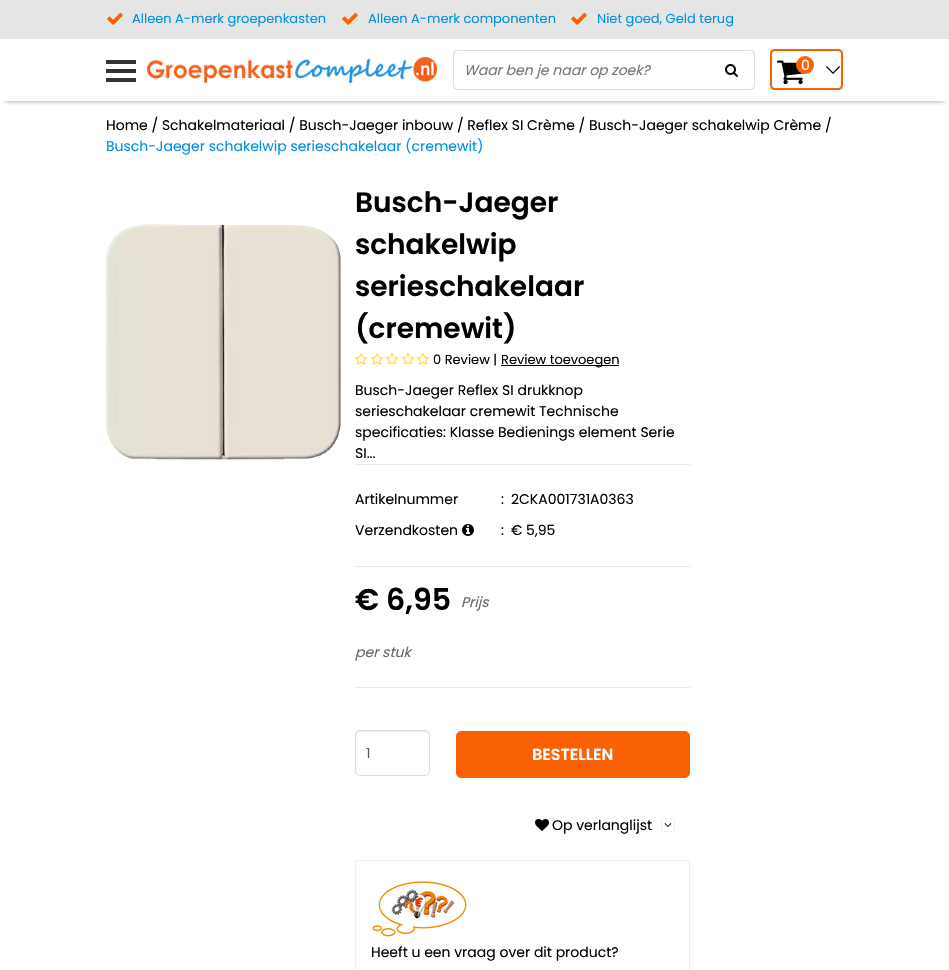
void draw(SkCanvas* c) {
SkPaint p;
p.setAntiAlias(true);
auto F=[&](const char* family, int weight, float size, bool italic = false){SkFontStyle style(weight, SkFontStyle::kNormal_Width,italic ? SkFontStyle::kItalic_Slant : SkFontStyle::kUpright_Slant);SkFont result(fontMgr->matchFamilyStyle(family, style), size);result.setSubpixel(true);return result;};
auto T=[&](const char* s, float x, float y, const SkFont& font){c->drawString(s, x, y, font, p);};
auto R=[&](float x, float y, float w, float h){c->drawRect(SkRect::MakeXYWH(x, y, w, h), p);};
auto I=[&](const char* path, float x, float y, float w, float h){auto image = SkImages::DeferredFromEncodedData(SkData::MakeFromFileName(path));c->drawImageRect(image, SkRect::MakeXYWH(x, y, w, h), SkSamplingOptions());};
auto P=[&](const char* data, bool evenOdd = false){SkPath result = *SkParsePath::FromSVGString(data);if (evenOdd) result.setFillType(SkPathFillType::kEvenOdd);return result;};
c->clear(0xffffffff);
p.setColor(0xffe5e5e5);
R(0,0,949,39);
I("1.png",107,12,16,13);
auto f1 = F("Poppins",400,13);
p.setColor(0xff0090e3);
T("Alleen A-merk groepenkasten",132,23,f1);
I("1.png",342,12,16,13);
T("Alleen A-merk componenten",368,23,f1);
I("1.png",571,12,16,13);
T("Niet goed, Geld terug",597,23,f1);
c->save();
c->clipRect(SkRect::MakeXYWH(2,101,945,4));
p.setColor(0x66000000);
p.setMaskFilter(SkMaskFilter::MakeBlur(kNormal_SkBlurStyle, 2.5));
c->drawRect(SkRect::MakeXYWH(5,49,939,52),p);
p.setMaskFilter(nullptr);
c->restore();
p.setColor(0xff333333);
R(106,60,30,4);
R(106,69,30,4);
R(106,78,30,4);
I("2.png",147,57,290,26);
p.setColor(0xffdddddd);
c->drawPath(P("M458 50h251v40h-251c-3 0-5-2-5-5v-30c0-3 2-5 5-5zm0 1h251v38h-251c-2 0-4-2-4-4v-30c0-2 2-4 4-4z",true),p);
auto f2 = F("Poppins",400,14,true);
p.setColor(0xff757575);
T("Waar ben je naar op zoek?",464,75,f2);
p.setColor(0xffdddddd);
c->drawPath(P("M709 50h41c3 0 5 2 5 5v30c0 3-2 5-5 5h-41zm0 1h41c2 0 4 2 4 4v30c0 2-2 4-4 4h-41z",true),p);
I("3.png",725,64,13,13);
p.setColor(0xfffa6105);
c->drawPath(P("M775 49h39v41h-39c-3 0-5-2-5-5v-31c0-3 2-5 5-5zm0 2h39v37h-39c-2 0-3-1-3-3v-31c0-2 1-3 3-3z",true),p);
I("4.png",777,60,28,25);
c->drawCircle(805,65,9,p);
auto f3 = F("Poppins",400,14);
p.setColor(0xffffffff);
T("0",801,70,f3);
p.setColor(0xfffa6105);
c->drawPath(P("M814 49h24c3 0 5 2 5 5v31c0 3-2 5-5 5h-24zm0 2h24c2 0 3 1 3 3v31c0 2-1 3-3 3h-24z",true),p);
I("5.png",826,66,14,8);
p.setColor(0xff000000);
T("Home / Schakelmateriaal / Busch-Jaeger inbouw / Reflex SI Crème / Busch-Jaeger schakelwip Crème /",106,130,f3);
p.setColor(0xff0090e3);
T("Busch-Jaeger schakelwip serieschakelaar (cremewit)",106,151,f3);
I("6.png",105,224,236,236);
auto f4 = F("Poppins",600,28);
p.setColor(0xff000000);
T("Busch-Jaeger",355,212,f4);
T("schakelwip",355,254,f4);
T("serieschakelaar",355,296,f4);
T("(cremewit)",355,338,f4);
I("7.png",355,353,12,12);
I("7.png",371,353,12,12);
I("7.png",386,353,12,12);
I("7.png",402,353,12,12);
I("7.png",417,353,12,12);
T("0 Review |",433,364,f1);
R(501,365,118,1);
T("Review toevoegen",501,364,f1);
T("Busch-Jaeger Reflex SI drukknop",355,395,f3);
T("serieschakelaar cremewit Technische",355,416,f3);
T("specificaties: Klasse Bedienings element Serie",355,437,f3);
T("SI...",355,458,f3);
p.setColor(0xffe8e8e8);
R(355,464,335,1);
p.setColor(0xff000000);
T("Artikelnummer",355,504,f3);
T(":",501,504,f3);
T("2CKA001731A0363",511,504,f3);
T("Verzendkosten",355,535,f3);
I("8.png",462,524,12,12);
T(":",501,535,f3);
T("€ 5,95",511,535,f3);
p.setColor(0xffe8e8e8);
R(355,566,335,1);
auto f5 = F("Poppins",600,30);
p.setColor(0xff000000);
T("€ 6,95",355,610,f5);
p.setColor(0xff666666);
T("Prijs",461,607,f2);
T("per stuk",355,657,f2);
p.setColor(0xffe8e8e8);
R(355,687,335,1);
p.setColor(0xffececec);
c->drawPath(P("M360 732h65c2 0 4 2 4 4c0-8-10-5-15-5h-43c-5 0-15-3-15 5c0-2 2-4 4-4z"),p);
p.setStroke(true);
p.setStrokeWidth(1);
p.setColor(0xffdddddd);
c->drawRoundRect(SkRect::MakeXYWH(355.5,730.5,74,45),4.5,4.5,p);
p.setStroke(false);
p.setColor(0xff555555);
T("1",366,758,f3);
p.setColor(0xfffa6105);
c->drawRoundRect(SkRect::MakeXYWH(456.5,731.5,233,46),4.5,4.5,p);
p.setStroke(true);
c->drawRoundRect(SkRect::MakeXYWH(456.5,731.5,233,46),4.5,4.5,p);
auto f6 = F("Poppins",600,16);
p.setStroke(false);
p.setColor(0xffffffff);
T("BESTELLEN",532,760,f6);
I("9.png",535,819,14,12);
p.setColor(0xff000000);
T("Op verlanglijst",552,830,f3);
p.setStroke(true);
p.setColor(0xffeeeeee);
c->drawRoundRect(SkRect::MakeXYWH(661.5,818.5,13,13),2.5,2.5,p);
I("10.png",664,823,8,4);
c->drawRect(SkRect::MakeXYWH(355.5,860.5,334,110),p);
I("11.png",372,879,95,58);
p.setStroke(false);
p.setColor(0xff000000);
T("Heeft u een vraag over dit product?",371,957,f3);
}
